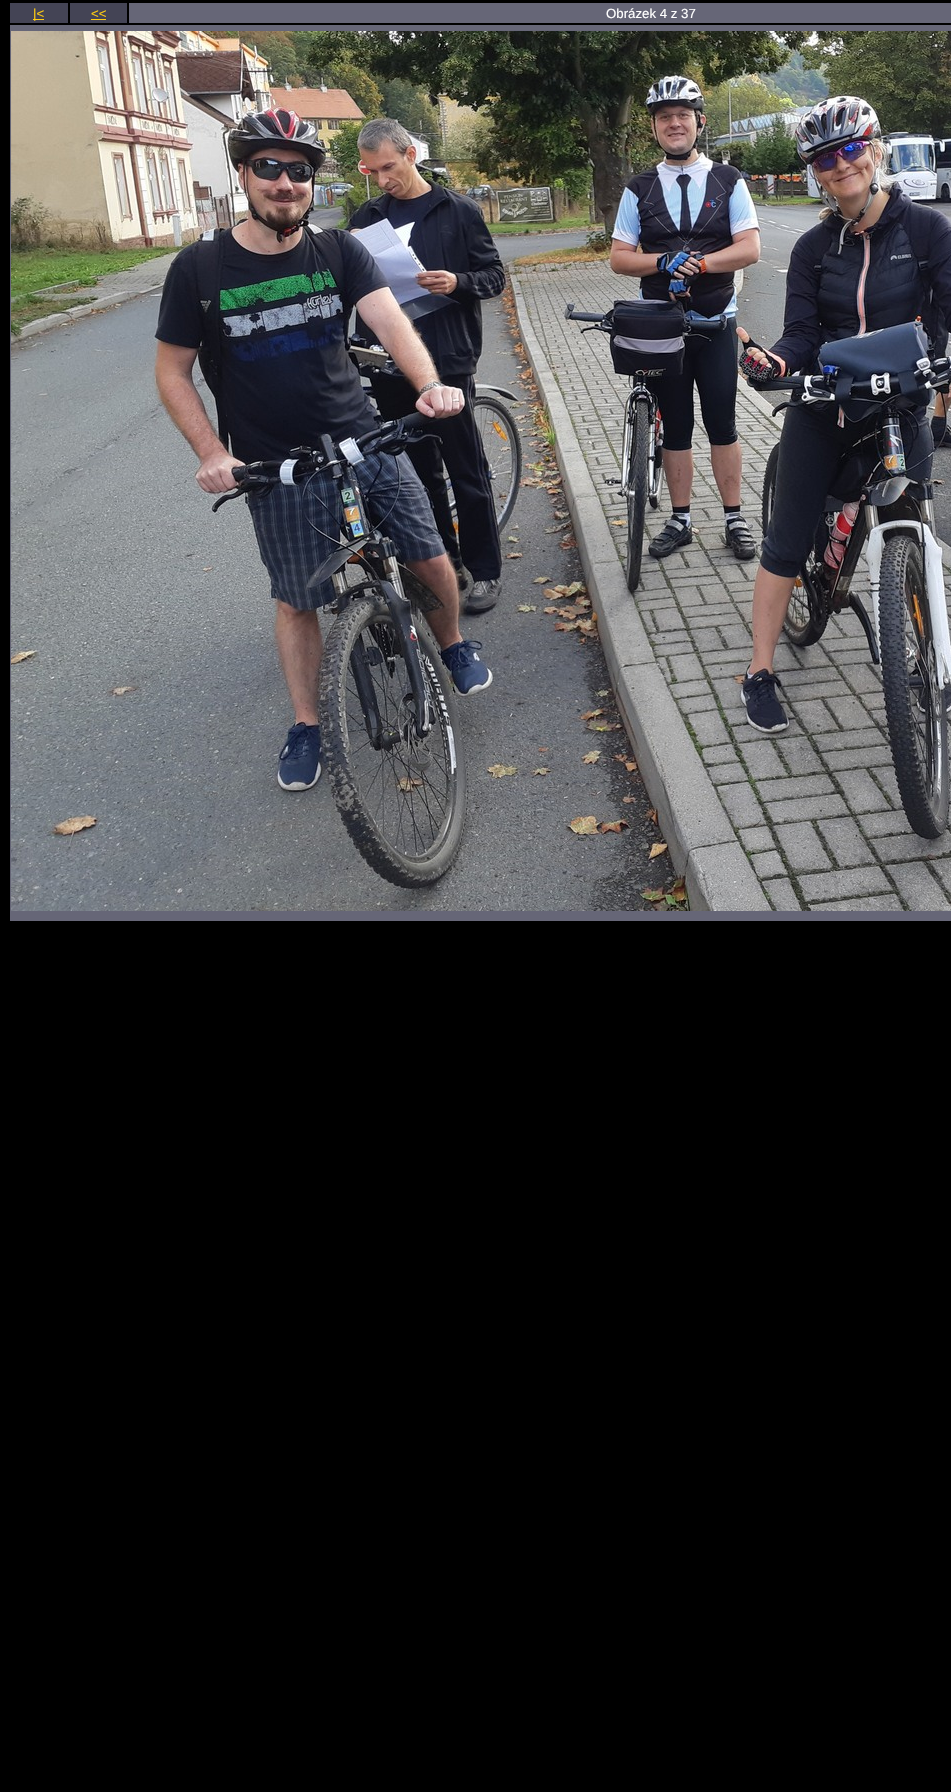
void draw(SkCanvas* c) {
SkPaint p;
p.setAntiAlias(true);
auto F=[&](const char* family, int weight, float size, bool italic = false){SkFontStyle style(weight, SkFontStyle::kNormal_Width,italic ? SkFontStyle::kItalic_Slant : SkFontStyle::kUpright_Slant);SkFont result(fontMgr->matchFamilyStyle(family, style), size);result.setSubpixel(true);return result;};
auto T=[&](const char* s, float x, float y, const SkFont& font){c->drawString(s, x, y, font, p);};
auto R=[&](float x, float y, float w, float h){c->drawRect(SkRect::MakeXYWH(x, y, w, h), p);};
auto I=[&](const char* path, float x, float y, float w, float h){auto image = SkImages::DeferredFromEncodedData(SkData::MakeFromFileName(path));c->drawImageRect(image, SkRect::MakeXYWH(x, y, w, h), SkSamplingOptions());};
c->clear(0xff000000);
p.setColor(0xff444455);
R(10,3,58,20);
p.setColor(0xffffcc11);
R(33,19,11,1);
auto f1 = F("Liberation Sans",400,13.25);
T("|<",33,18,f1);
p.setColor(0xff444455);
R(70,3,57,20);
p.setColor(0xffffcc11);
T("<<",91,18,f1);
R(91,19,15,1);
p.setColor(0xff666677);
R(129,3,822,20);
p.setColor(0xffffffff);
T("Obrázek 4 z 37",606,18,f1);
p.setColor(0xff666677);
R(10,25,941,896);
I("1.png",11,31,940,880);
}
